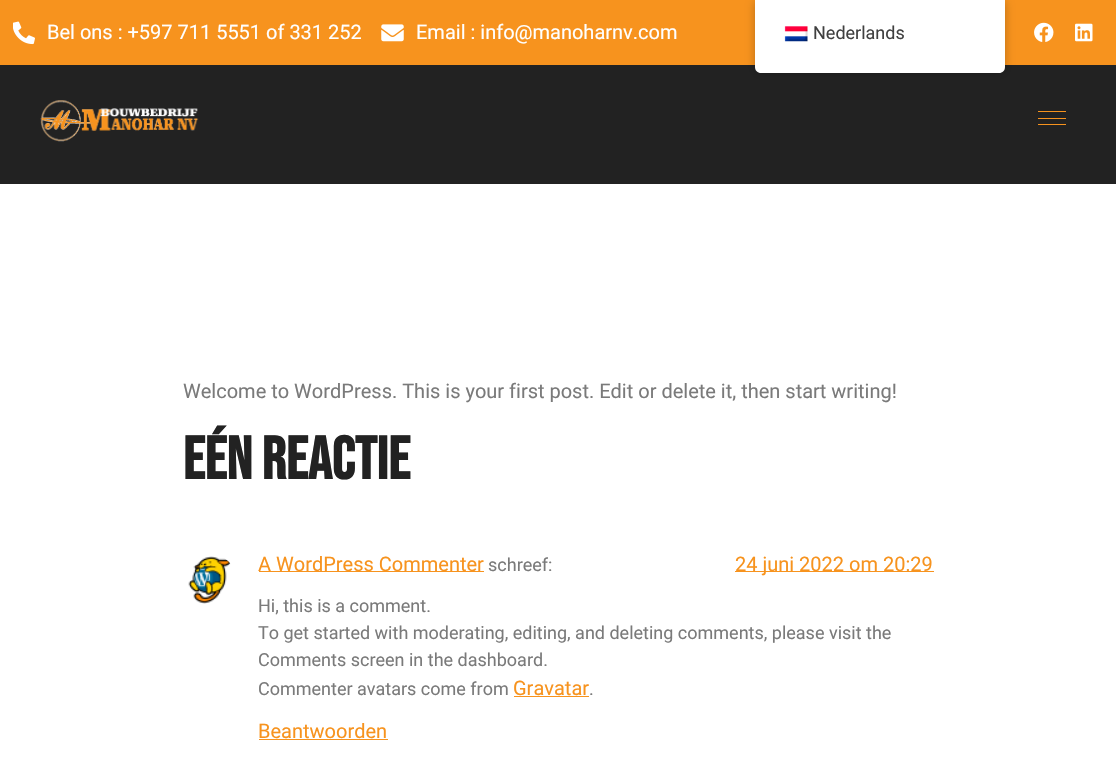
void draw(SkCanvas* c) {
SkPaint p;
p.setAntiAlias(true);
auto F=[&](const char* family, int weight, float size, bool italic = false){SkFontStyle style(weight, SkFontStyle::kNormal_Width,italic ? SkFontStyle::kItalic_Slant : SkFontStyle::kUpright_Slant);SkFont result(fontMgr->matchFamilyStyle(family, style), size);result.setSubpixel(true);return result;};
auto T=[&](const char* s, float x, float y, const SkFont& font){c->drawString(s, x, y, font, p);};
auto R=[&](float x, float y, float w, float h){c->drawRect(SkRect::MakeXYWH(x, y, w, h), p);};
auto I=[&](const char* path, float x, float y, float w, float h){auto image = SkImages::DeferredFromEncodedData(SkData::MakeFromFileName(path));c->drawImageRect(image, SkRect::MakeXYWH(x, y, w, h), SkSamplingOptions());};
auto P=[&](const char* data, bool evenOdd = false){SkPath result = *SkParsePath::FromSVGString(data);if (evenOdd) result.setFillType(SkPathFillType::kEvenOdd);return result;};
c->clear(0xffffffff);
p.setColor(0xfff7931e);
R(0,0,1116,65);
I("1.png",13,21,22,24);
auto f1 = F("Roboto",400,20);
p.setColor(0xffffffff);
T("Bel ons : +597 711 5551 of 331 252",47,39,f1);
I("2.png",381,24,23,18);
T("Email : info@manoharnv.com",416,39,f1);
I("3.png",1034,22,20,20);
I("4.png",1075,23,18,19);
p.setColor(0xff222222);
R(0,65,1116,119);
I("5.png",40,100,159,42);
p.setColor(0xfff7931e);
R(1038,111,28,1);
R(1038,118,28,1);
R(1038,124,28,1);
p.setColor(0x40000000);
p.setMaskFilter(SkMaskFilter::MakeBlur(kNormal_SkBlurStyle, 5));
c->drawRoundRect(SkRect::MakeXYWH(755,0,250,73),6,6,p);
p.setMaskFilter(nullptr);
p.setColor(0xffffffff);
c->drawPath(P("M755 0h250v67c0 3.5-2.5 6-6 6h-238c-3.5 0-6-2.5-6-6z"),p);
I("6.png",784,26,24,16);
auto f2 = F("Roboto",400,18);
p.setColor(0xff404040);
T("Nederlands",813,39,f2);
p.setColor(0xff7a7a7a);
T("Welcome to WordPress. This is your first post. Edit or delete it, then start writing!",183,398,f1);
auto f3 = F("Bebas Neue",700,60);
p.setColor(0xff222222);
T("Eén reactie",183,479,f3);
I("7.png",188,556,43,48);
p.setColor(0xfff7931e);
R(259,571,225,1);
T("A WordPress Commenter",258,571,f1);
p.setColor(0xff7a7a7a);
T("schreef:",488,571,f2);
p.setColor(0xfff7931e);
R(735,571,199,1);
T("24 juni 2022 om 20:29",735,571,f1);
p.setColor(0xff7a7a7a);
T("Hi, this is a comment.",258,612,f2);
T("To get started with moderating, editing, and deleting comments, please visit the",258,639,f2);
T("Comments screen in the dashboard.",258,666,f2);
T("Commenter avatars come from",258,695,f2);
p.setColor(0xfff7931e);
T("Gravatar",513,695,f1);
R(514,696,75,1);
p.setColor(0xff7a7a7a);
T(".",589,695,f2);
p.setColor(0xfff7931e);
T("Beantwoorden",258,738,f1);
R(259,739,129,1);
}
